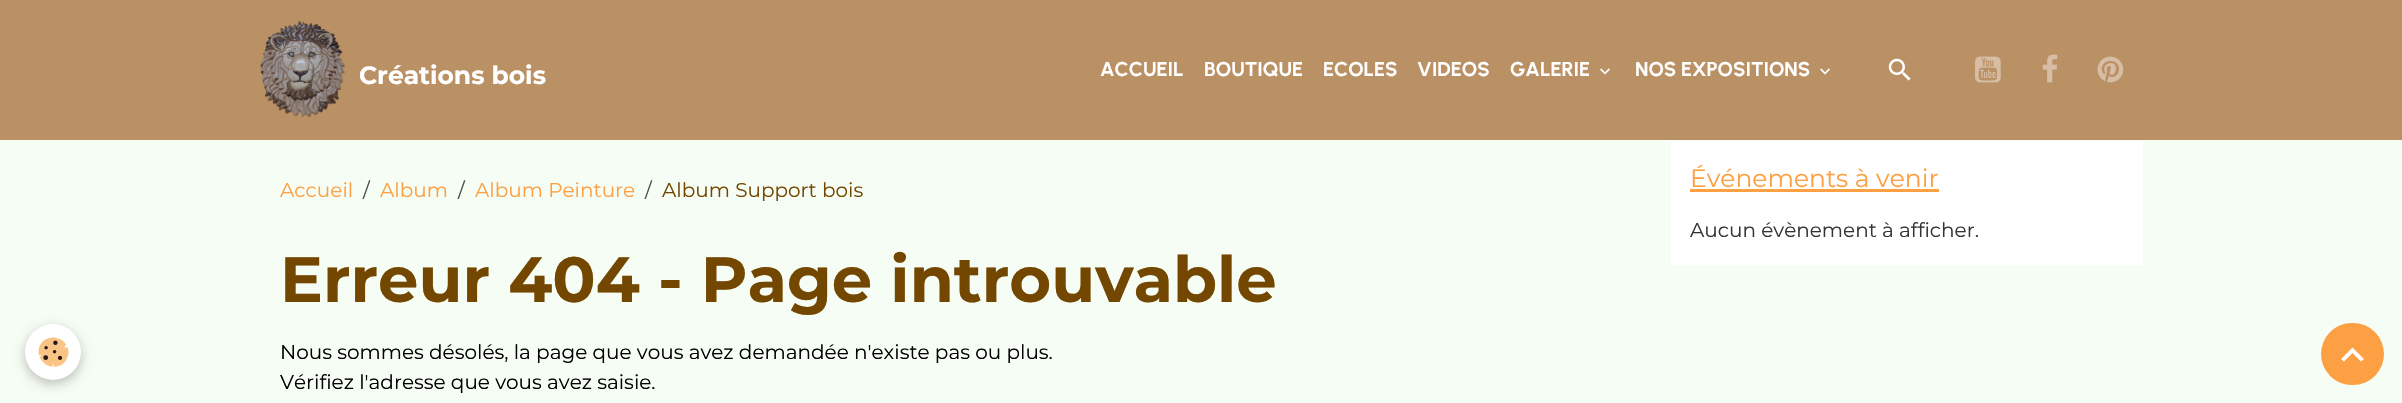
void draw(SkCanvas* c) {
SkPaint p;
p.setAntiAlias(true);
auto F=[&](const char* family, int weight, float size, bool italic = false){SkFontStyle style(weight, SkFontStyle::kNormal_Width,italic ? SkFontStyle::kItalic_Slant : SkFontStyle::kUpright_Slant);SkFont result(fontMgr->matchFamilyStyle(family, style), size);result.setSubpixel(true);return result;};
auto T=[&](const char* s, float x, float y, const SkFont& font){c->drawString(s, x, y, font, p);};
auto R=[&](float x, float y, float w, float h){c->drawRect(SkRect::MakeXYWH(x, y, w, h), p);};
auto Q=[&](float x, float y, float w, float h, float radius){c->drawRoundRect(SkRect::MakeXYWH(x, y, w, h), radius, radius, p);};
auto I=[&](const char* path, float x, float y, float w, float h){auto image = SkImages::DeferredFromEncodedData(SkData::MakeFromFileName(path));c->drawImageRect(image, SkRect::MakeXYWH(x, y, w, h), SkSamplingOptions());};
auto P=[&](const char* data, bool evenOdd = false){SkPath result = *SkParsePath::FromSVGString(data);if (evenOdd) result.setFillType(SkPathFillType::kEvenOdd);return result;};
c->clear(0xfff6fdf4);
p.setColor(0xffba9065);
R(0,0,2402,140);
I("1.png",260,21,85,97);
auto f1 = F("Montserrat",700,25);
p.setColor(0xffffffff);
T("Créations bois",359,84,f1);
auto f2 = F("Urbanist",700,20);
T("ACCUEIL",1100,76,f2);
T("BOUTIQUE",1204,76,f2);
T("ECOLES",1323,76,f2);
T("VIDEOS",1417,76,f2);
T("GALERIE",1510,76,f2);
I("2.png",1600,68,10,7);
T("NOS EXPOSITIONS",1635,76,f2);
I("2.png",1820,68,10,7);
I("3.png",1888,58,23,23);
I("4.png",1975,56,26,27);
I("5.png",2042,54,16,29);
I("6.png",2097,56,27,27);
p.setColor(0x3d000000);
p.setMaskFilter(SkMaskFilter::MakeBlur(kNormal_SkBlurStyle, 6));
c->drawRoundRect(SkRect::MakeXYWH(25,328,56,56),28,28,p);
p.setMaskFilter(nullptr);
p.setColor(0xffffffff);
c->drawCircle(53,352,28,p);
I("7.png",38,337,31,30);
auto f3 = F("Montserrat",400,20);
p.setColor(0xfffda043);
T("Accueil",280,197,f3);
p.setColor(0xff4d4d4d);
T("/",363,197,f3);
p.setColor(0xfffda043);
T("Album",380,197,f3);
p.setColor(0xff4d4d4d);
T("/",458,197,f3);
p.setColor(0xfffda043);
T("Album Peinture",475,197,f3);
p.setColor(0xff4d4d4d);
T("/",645,197,f3);
p.setColor(0xff744700);
T("Album Support bois",662,197,f3);
auto f4 = F("Montserrat",700,64);
T("Erreur 404 - Page introuvable",280,302,f4);
p.setColor(0xff000000);
T("Nous sommes désolés, la page que vous avez demandée n'existe pas ou plus.",280,359,f3);
T("Vérifiez l'adresse que vous avez saisie.",280,389,f3);
p.setColor(0xffffffff);
R(1671,141,472,124);
auto f5 = F("Montserrat",400,25);
p.setColor(0xfffda043);
T("Événements à venir",1690,187,f5);
R(1690,189,249,3);
p.setColor(0xff333333);
T("Aucun évènement à afficher.",1690,237,f3);
p.setColor(0xfffda043);
Q(2321,323,63,62,31);
p.setColor(0xffffffff);
c->drawPath(P("M2352.5 347.5l11.5 11.5l-3 2.5l-8.5-8.5l-8.5 8.5l-3-2.5z"),p);
}
